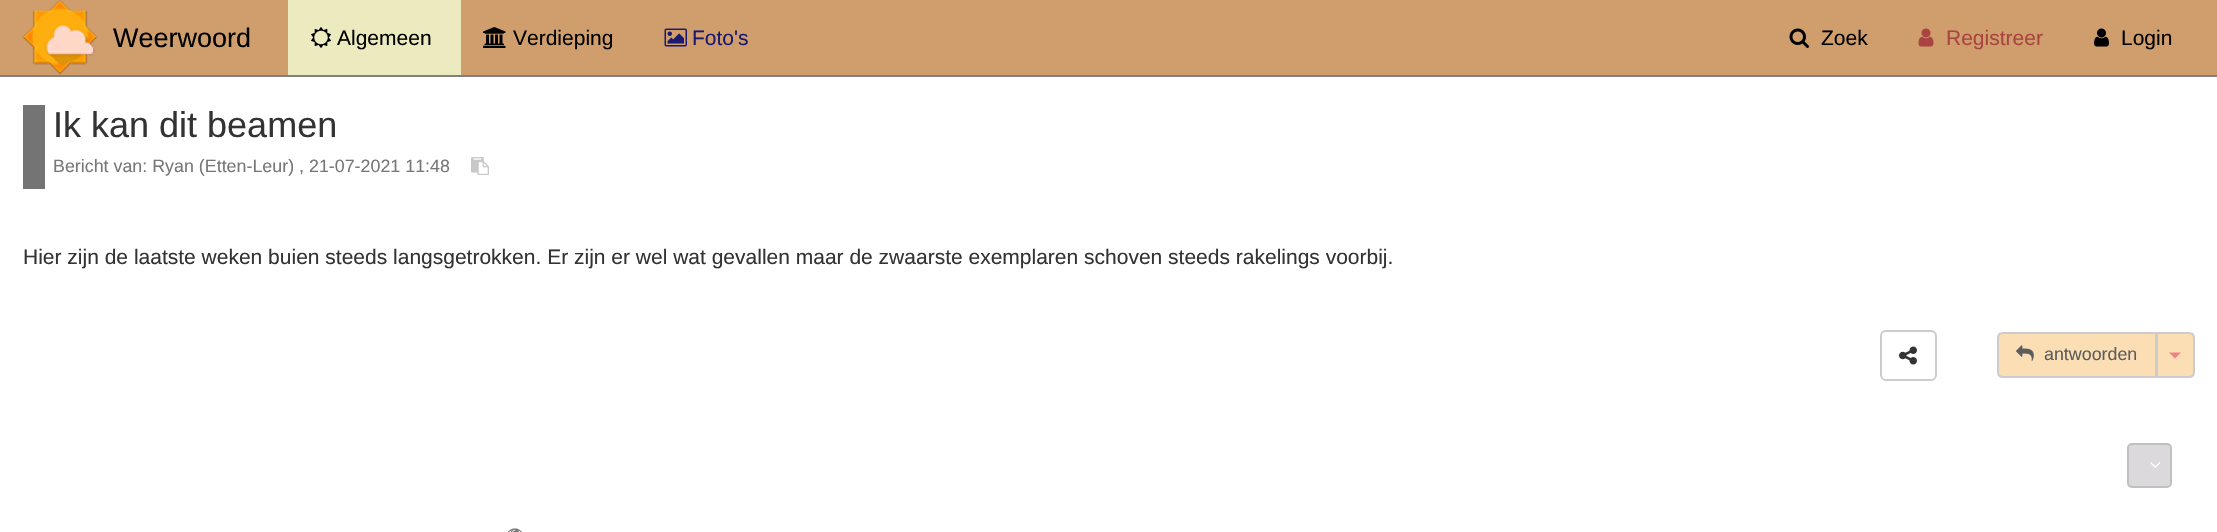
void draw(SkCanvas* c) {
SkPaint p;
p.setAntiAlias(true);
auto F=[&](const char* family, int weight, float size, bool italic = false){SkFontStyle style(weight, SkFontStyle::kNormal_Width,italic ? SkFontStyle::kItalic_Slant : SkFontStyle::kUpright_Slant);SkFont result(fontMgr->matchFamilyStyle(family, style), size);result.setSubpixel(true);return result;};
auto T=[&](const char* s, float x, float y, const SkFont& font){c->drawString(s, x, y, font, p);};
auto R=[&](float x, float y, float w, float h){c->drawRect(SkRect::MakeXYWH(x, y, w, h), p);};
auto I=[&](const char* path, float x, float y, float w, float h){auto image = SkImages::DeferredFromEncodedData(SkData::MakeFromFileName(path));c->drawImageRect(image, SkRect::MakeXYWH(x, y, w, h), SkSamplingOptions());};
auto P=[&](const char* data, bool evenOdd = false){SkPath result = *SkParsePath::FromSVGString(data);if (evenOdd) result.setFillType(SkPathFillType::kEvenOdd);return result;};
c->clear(0xffffffff);
p.setColor(0xffd09e6d);
R(0,0,2217,75);
p.setColor(0xff808080);
R(0,75,2217,2);
I("1.png",22,0,76,74);
auto f1 = F("Liberation Sans",400,27);
p.setColor(0xff000000);
T("Weerwoord",113,47,f1);
p.setColor(0xffecebbf);
R(288,0,173,75);
I("2.png",311,27,20,21);
auto f2 = F("Liberation Sans",400,21);
p.setColor(0xff000000);
T("Algemeen",337,45,f2);
I("3.png",483,27,23,21);
T("Verdieping",513,45,f2);
I("4.png",664,28,23,19);
p.setColor(0xff191970);
T("Foto's",692,45,f2);
I("5.png",1789,28,20,20);
p.setColor(0xff000000);
T("Zoek",1821,45,f2);
I("6.png",1918,28,16,19);
p.setColor(0xffa94442);
T("Registreer",1946,45,f2);
I("7.png",2094,28,15,19);
p.setColor(0xff000000);
T("Login",2121,45,f2);
p.setColor(0xff747474);
R(23,105,22,84);
auto f3 = F("Liberation Sans",400,36);
p.setColor(0xff333333);
T("Ik kan dit beamen",53,137,f3);
auto f4 = F("Liberation Sans",400,17.85);
p.setColor(0xff777777);
T("Bericht van: Ryan (Etten-Leur) , 21-07-2021 11:48",53,172,f4);
I("8.png",471,157,18,18);
p.setColor(0xff333333);
T("Hier zijn de laatste weken buien steeds langsgetrokken. Er zijn er wel wat gevallen maar de zwaarste exemplaren schoven steeds rakelings voorbij.",23,264,f2);
p.setStroke(true);
p.setStrokeWidth(2);
p.setColor(0xffcccccc);
c->drawRoundRect(SkRect::MakeXYWH(1881,331,55,49),5,5,p);
I("9.png",1899,346,18,19);
p.setStroke(false);
p.setColor(0xfffbdeb4);
c->drawPath(P("M2003 333h153v44h-153c-3 0-5-2-5-5v-34c0-3 2-5 5-5z"),p);
p.setStroke(true);
p.setColor(0xffcccccc);
c->drawPath(P("M2003 333h153v44h-153c-3 0-5-2-5-5v-34c0-3 2-5 5-5z"),p);
I("10.png",2016,345,18,17);
p.setStroke(false);
p.setColor(0xff5d5d5d);
T("antwoorden",2044,360,f4);
p.setColor(0xfffbdeb4);
c->drawPath(P("M2157 333h32c3 0 5 2 5 5v34c0 3-2 5-5 5h-32z"),p);
p.setStroke(true);
p.setColor(0xffcccccc);
c->drawPath(P("M2157 333h32c3 0 5 2 5 5v34c0 3-2 5-5 5h-32z"),p);
p.setStroke(false);
p.setColor(0xffef8289);
c->drawPath(P("M2169 352.5h12l-6 6z"),p);
p.setColor(0xffdbd9db);
c->drawRoundRect(SkRect::MakeXYWH(2128,444,43,43),4,4,p);
p.setStroke(true);
p.setColor(0xffc0c0c0);
c->drawRoundRect(SkRect::MakeXYWH(2128,444,43,43),4,4,p);
I("11.png",2150,462,10,6);
I("12.png",508,528,14,4);
}
